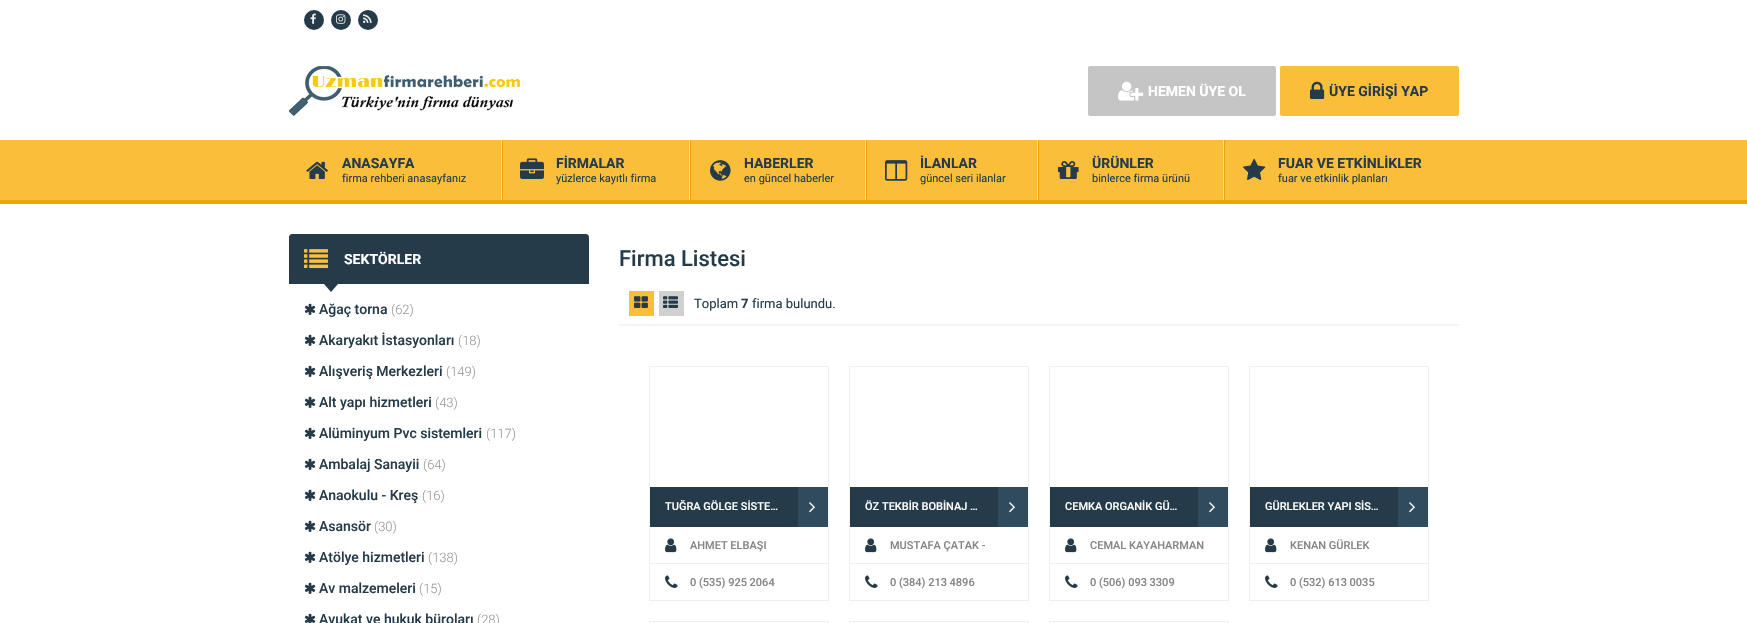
void draw(SkCanvas* c) {
SkPaint p;
p.setAntiAlias(true);
auto F=[&](const char* family, int weight, float size, bool italic = false){SkFontStyle style(weight, SkFontStyle::kNormal_Width,italic ? SkFontStyle::kItalic_Slant : SkFontStyle::kUpright_Slant);SkFont result(fontMgr->matchFamilyStyle(family, style), size);result.setSubpixel(true);return result;};
auto T=[&](const char* s, float x, float y, const SkFont& font){c->drawString(s, x, y, font, p);};
auto R=[&](float x, float y, float w, float h){c->drawRect(SkRect::MakeXYWH(x, y, w, h), p);};
auto Q=[&](float x, float y, float w, float h, float radius){c->drawRoundRect(SkRect::MakeXYWH(x, y, w, h), radius, radius, p);};
auto I=[&](const char* path, float x, float y, float w, float h){auto image = SkImages::DeferredFromEncodedData(SkData::MakeFromFileName(path));c->drawImageRect(image, SkRect::MakeXYWH(x, y, w, h), SkSamplingOptions());};
auto P=[&](const char* data, bool evenOdd = false){SkPath result = *SkParsePath::FromSVGString(data);if (evenOdd) result.setFillType(SkPathFillType::kEvenOdd);return result;};
c->clear(0xffffffff);
p.setColor(0xff253b49);
c->drawCircle(314,20,10,p);
I("1.png",310,13,6,11);
c->drawCircle(341,20,10,p);
I("2.png",336,14,10,10);
c->drawCircle(368,20,10,p);
I("3.png",363,14,9,9);
I("4.png",289,66,231,50);
p.setColor(0xffc5c5c5);
Q(1088,66,188,50,2);
I("5.png",1118,81,26,20);
auto f1 = F("Roboto",700,14);
p.setColor(0xffffffff);
T("HEMEN ÜYE OL",1148,96,f1);
p.setColor(0xfff9bf3b);
Q(1280,66,179,50,2);
I("6.png",1310,81,15,18);
p.setColor(0xff253b49);
T("ÜYE GİRİŞİ YAP",1329,96,f1);
p.setColor(0xfff9bf3b);
R(0,140,1747,60);
p.setColor(0xffeba507);
R(0,200,1747,4);
p.setColor(0xfffcdf9e);
R(501,140,1,60);
I("7.png",306,161,22,18);
p.setColor(0xff253b49);
T("ANASAYFA",342,168,f1);
auto f2 = F("Roboto",400,11);
T("firma rehberi anasayfanız",342,182,f2);
p.setColor(0xfffcdf9e);
R(689,140,1,60);
p.setColor(0xffeba507);
R(502,140,1,60);
I("8.png",520,158,24,21);
p.setColor(0xff253b49);
T("FİRMALAR",556,168,f1);
T("yüzlerce kayıtlı firma",556,182,f2);
p.setColor(0xfffcdf9e);
R(865,140,1,60);
p.setColor(0xffeba507);
R(690,140,1,60);
I("9.png",710,160,21,21);
p.setColor(0xff253b49);
T("HABERLER",744,168,f1);
T("en güncel haberler",744,182,f2);
p.setColor(0xfffcdf9e);
R(1037,140,1,60);
p.setColor(0xffeba507);
R(866,140,1,60);
I("10.png",885,160,23,21);
p.setColor(0xff253b49);
T("İLANLAR",920,168,f1);
T("güncel seri ilanlar",920,182,f2);
p.setColor(0xfffcdf9e);
R(1223,140,1,60);
p.setColor(0xffeba507);
R(1038,140,1,60);
I("11.png",1058,161,21,18);
p.setColor(0xff253b49);
T("ÜRÜNLER",1092,168,f1);
T("binlerce firma ürünü",1092,182,f2);
p.setColor(0xffeba507);
R(1224,140,1,60);
I("12.png",1243,158,23,23);
p.setColor(0xff253b49);
T("FUAR VE ETKİNLİKLER",1278,168,f1);
T("fuar ve etkinlik planları",1278,182,f2);
c->drawPath(P("M292 234h294c1.5 0 3 1.5 3 3v47h-300v-47c0-1.5 1.5-3 3-3z"),p);
I("13.png",304,249,24,19);
p.setColor(0xffffffff);
T("SEKTÖRLER",344,264,f1);
p.setColor(0xff253b49);
c->drawPath(P("M324 284h14l-7 8z"),p);
I("14.png",304,303,12,12);
auto f3 = F("Roboto",500,14);
T("Ağaç torna",319,314,f3);
auto f4 = F("Roboto",300,13);
p.setColor(0xff999999);
T("(62)",391,314,f4);
I("14.png",304,334,12,12);
p.setColor(0xff253b49);
T("Akaryakıt İstasyonları",319,345,f3);
p.setColor(0xff999999);
T("(18)",458,345,f4);
I("14.png",304,365,12,12);
p.setColor(0xff253b49);
T("Alışveriş Merkezleri",319,376,f3);
p.setColor(0xff999999);
T("(149)",446,376,f4);
I("14.png",304,396,12,12);
p.setColor(0xff253b49);
T("Alt yapı hizmetleri",319,407,f3);
p.setColor(0xff999999);
T("(43)",435,407,f4);
I("14.png",304,427,12,12);
p.setColor(0xff253b49);
T("Alüminyum Pvc sistemleri",319,438,f3);
p.setColor(0xff999999);
T("(117)",486,438,f4);
I("14.png",304,458,12,12);
p.setColor(0xff253b49);
T("Ambalaj Sanayii",319,469,f3);
p.setColor(0xff999999);
T("(64)",423,469,f4);
I("14.png",304,489,12,12);
p.setColor(0xff253b49);
T("Anaokulu - Kreş",319,500,f3);
p.setColor(0xff999999);
T("(16)",422,500,f4);
I("14.png",304,520,12,12);
p.setColor(0xff253b49);
T("Asansör",319,531,f3);
p.setColor(0xff999999);
T("(30)",374,531,f4);
I("14.png",304,551,12,12);
p.setColor(0xff253b49);
T("Atölye hizmetleri",319,562,f3);
p.setColor(0xff999999);
T("(138)",428,562,f4);
I("14.png",304,582,12,12);
p.setColor(0xff253b49);
T("Av malzemeleri",319,593,f3);
p.setColor(0xff999999);
T("(15)",419,593,f4);
I("15.png",304,613,12,10);
p.setColor(0xff253b49);
T("Avukat ve hukuk büroları",319,624,f3);
p.setColor(0xff999999);
T("(28)",477,624,f4);
auto f5 = F("Roboto",500,22);
p.setColor(0xff253b49);
T("Firma Listesi",619,266,f5);
p.setColor(0xfff4f4f4);
R(619,324,840,2);
p.setColor(0xfff9bf3b);
R(629,291,25,25);
I("16.png",634,296,14,12);
p.setColor(0xffd0d0d0);
R(659,291,25,25);
I("17.png",663,296,15,12);
auto f6 = F("Roboto",400,13);
p.setColor(0xff253b49);
T("Toplam",694,308,f6);
auto f7 = F("Roboto",700,13);
T("7",741,308,f7);
T("firma bulundu.",752,308,f6);
p.setStroke(true);
p.setStrokeWidth(1);
p.setColor(0xffefefef);
c->drawRect(SkRect::MakeXYWH(649.5,366.5,179,234),p);
p.setStroke(false);
p.setColor(0xff253b49);
R(650,487,148,40);
auto f8 = F("Roboto",500,11);
p.setColor(0xffffffff);
T("TUĞRA GÖLGE SİSTE…",665,510,f8);
p.setColor(0xff2f4b5d);
R(798,487,30,40);
I("18.png",809,502,6,11);
p.setColor(0xffefefef);
R(650,563,178,1);
I("19.png",665,538,12,15);
p.setColor(0xff848484);
T("AHMET ELBAŞI",690,549,f8);
I("20.png",665,575,13,13);
T("0 (535) 925 2064",690,586,f8);
p.setStroke(true);
p.setColor(0xffefefef);
c->drawRect(SkRect::MakeXYWH(849.5,366.5,179,234),p);
p.setStroke(false);
p.setColor(0xff253b49);
R(850,487,148,40);
p.setColor(0xffffffff);
T("ÖZ TEKBİR BOBİNAJ …",865,510,f8);
p.setColor(0xff2f4b5d);
R(998,487,30,40);
I("18.png",1009,502,6,11);
p.setColor(0xffefefef);
R(850,563,178,1);
I("19.png",865,538,12,15);
p.setColor(0xff848484);
T("MUSTAFA ÇATAK -",890,549,f8);
I("20.png",865,575,13,13);
T("0 (384) 213 4896",890,586,f8);
p.setStroke(true);
p.setColor(0xffefefef);
c->drawRect(SkRect::MakeXYWH(1049.5,366.5,179,234),p);
p.setStroke(false);
p.setColor(0xff253b49);
R(1050,487,148,40);
p.setColor(0xffffffff);
T("CEMKA ORGANİK GÜ…",1065,510,f8);
p.setColor(0xff2f4b5d);
R(1198,487,30,40);
I("18.png",1209,502,6,11);
p.setColor(0xffefefef);
R(1050,563,178,1);
I("19.png",1065,538,12,15);
p.setColor(0xff848484);
T("CEMAL KAYAHARMAN",1090,549,f8);
I("20.png",1065,575,13,13);
T("0 (506) 093 3309",1090,586,f8);
p.setStroke(true);
p.setColor(0xffefefef);
c->drawRect(SkRect::MakeXYWH(1249.5,366.5,179,234),p);
p.setStroke(false);
p.setColor(0xff253b49);
R(1250,487,148,40);
p.setColor(0xffffffff);
T("GÜRLEKLER YAPI SİS…",1265,510,f8);
p.setColor(0xff2f4b5d);
R(1398,487,30,40);
I("18.png",1409,502,6,11);
p.setColor(0xffefefef);
R(1250,563,178,1);
I("19.png",1265,538,12,15);
p.setColor(0xff848484);
T("KENAN GÜRLEK",1290,549,f8);
I("20.png",1265,575,13,13);
T("0 (532) 613 0035",1290,586,f8);
p.setStroke(true);
p.setColor(0xffefefef);
c->drawRect(SkRect::MakeXYWH(649.5,621.5,179,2),p);
c->drawRect(SkRect::MakeXYWH(849.5,621.5,179,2),p);
c->drawRect(SkRect::MakeXYWH(1049.5,621.5,179,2),p);
}
